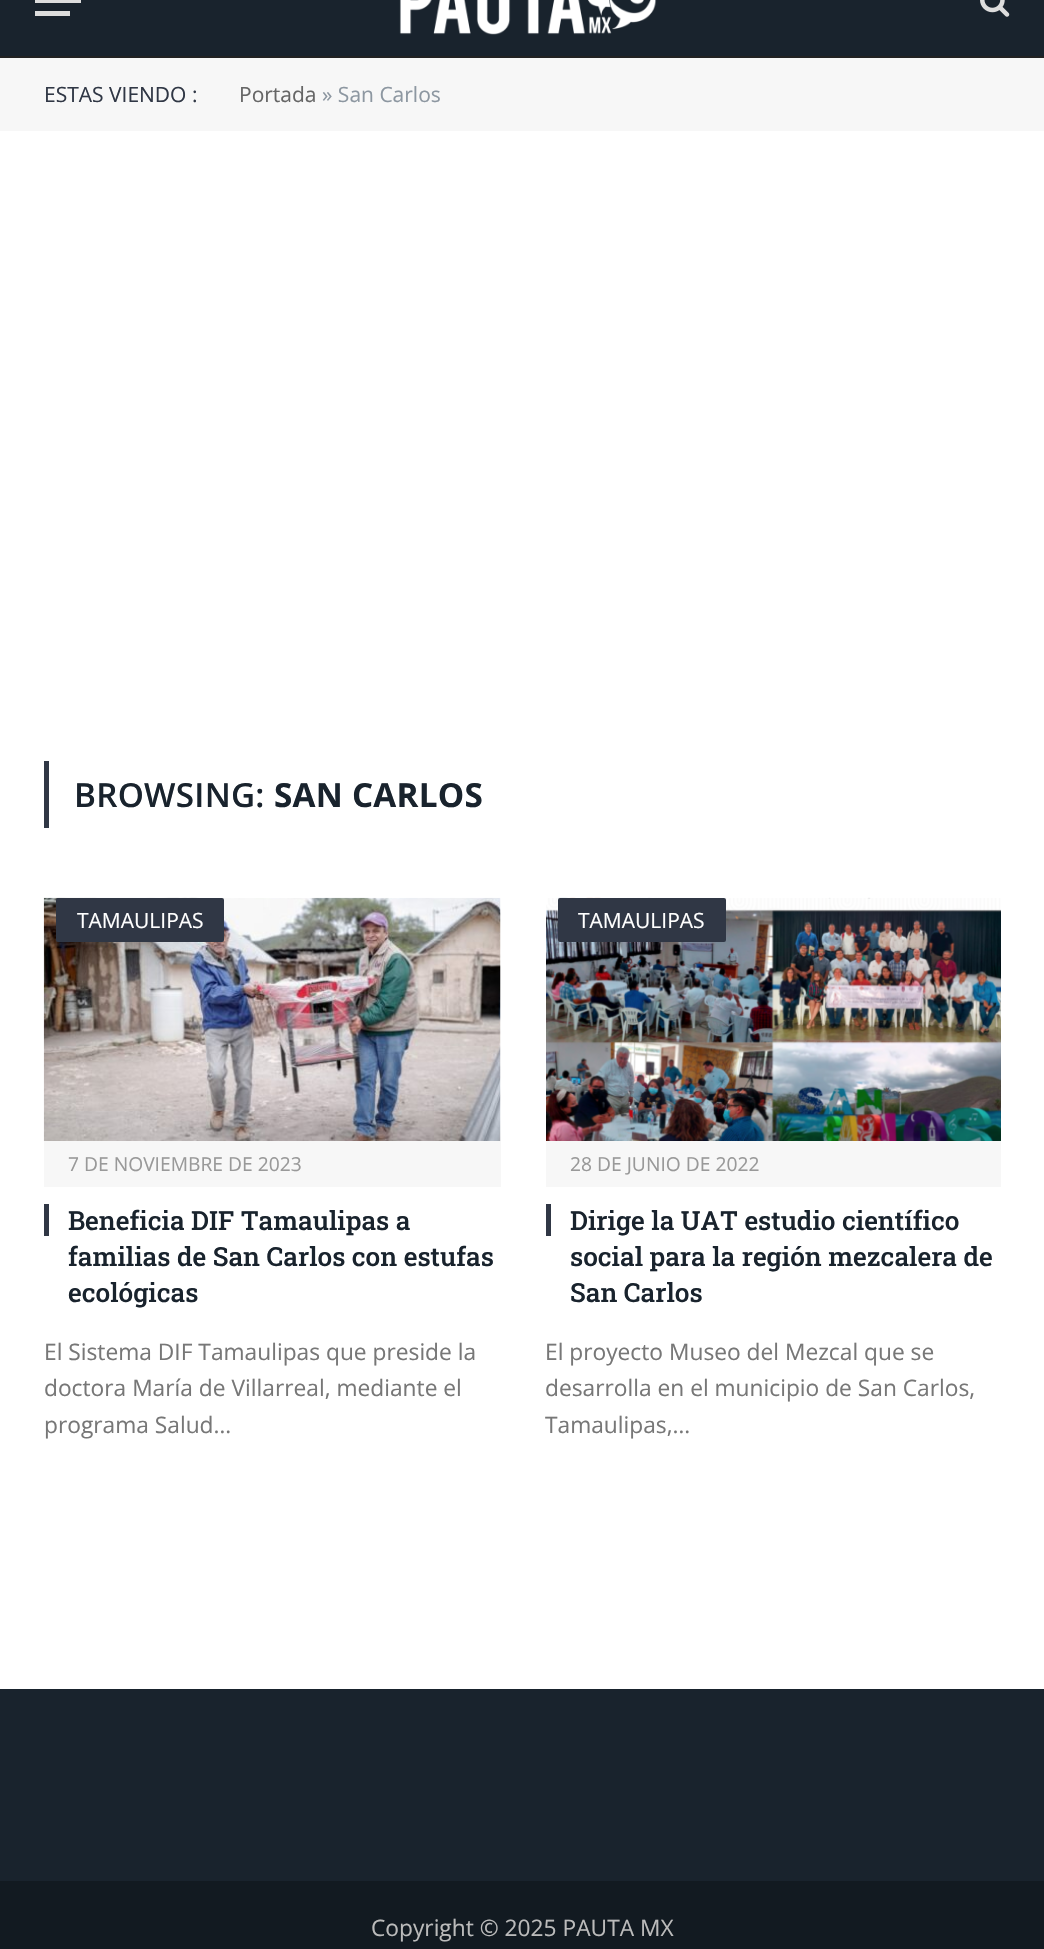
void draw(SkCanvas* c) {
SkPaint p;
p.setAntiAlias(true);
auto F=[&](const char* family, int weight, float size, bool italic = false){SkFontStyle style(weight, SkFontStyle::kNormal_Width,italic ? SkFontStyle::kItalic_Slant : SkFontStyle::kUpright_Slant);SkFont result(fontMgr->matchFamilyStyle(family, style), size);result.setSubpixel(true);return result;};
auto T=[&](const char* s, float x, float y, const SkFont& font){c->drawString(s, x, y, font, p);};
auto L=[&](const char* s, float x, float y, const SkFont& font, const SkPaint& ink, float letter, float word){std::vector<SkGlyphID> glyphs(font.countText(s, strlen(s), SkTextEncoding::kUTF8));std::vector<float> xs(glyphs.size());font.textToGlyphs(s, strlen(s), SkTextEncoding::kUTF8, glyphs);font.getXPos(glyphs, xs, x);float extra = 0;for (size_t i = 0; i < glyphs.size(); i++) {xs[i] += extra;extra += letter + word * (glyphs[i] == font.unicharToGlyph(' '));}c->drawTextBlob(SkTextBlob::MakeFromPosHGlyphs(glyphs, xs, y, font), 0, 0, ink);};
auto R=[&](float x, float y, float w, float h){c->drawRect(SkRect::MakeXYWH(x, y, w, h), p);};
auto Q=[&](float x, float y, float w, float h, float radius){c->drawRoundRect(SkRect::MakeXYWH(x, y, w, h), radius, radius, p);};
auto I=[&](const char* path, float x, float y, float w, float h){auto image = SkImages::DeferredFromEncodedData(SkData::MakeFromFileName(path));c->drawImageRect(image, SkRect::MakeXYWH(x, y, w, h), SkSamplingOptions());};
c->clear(0xffffffff);
p.setColor(0xff19232d);
R(0,0,1044,56);
p.setColor(0xff222222);
R(0,56,1044,2);
p.setColor(0xffdddddd);
R(35,11,35,5);
R(35,0,46,3);
I("1.png",399,0,258,35);
I("2.png",980,0,30,17);
p.setColor(0xfff7f7f7);
R(0,58,1044,73);
auto f1 = F("Open Sans",400,21);
p.setColor(0xff303745);
T("ESTAS VIENDO :",44,102,f1);
p.setColor(0xff666666);
T("Portada",239,102,f1);
p.setColor(0xff8d97a1);
T("» San Carlos",322,102,f1);
p.setColor(0xff303745);
R(44,761,5,67);
auto f2 = F("Open Sans",600,33.25);
p.setColor(0xff19232d);
L("BROWSING:",74,807,f2,p,.25,0);
auto f3 = F("Open Sans",700,33.25);
L("SAN CARLOS",274,807,f3,p,.25,0);
I("3.png",43,897,458,244);
p.setColor(0xff303745);
Q(56,898,168,44,2);
p.setColor(0xffffffff);
T("TAMAULIPAS",77,928,f1);
p.setColor(0xfff7f7f7);
R(44,1141,457,46);
auto f4 = F("Open Sans",400,19.25);
p.setColor(0xff999999);
T("7 DE NOVIEMBRE DE 2023",68,1171,f4);
p.setColor(0xff303745);
R(44,1204,5,32);
auto f5 = F("Roboto Slab",500,26.25);
p.setColor(0xff19232d);
T("Beneficia DIF Tamaulipas a",68,1230,f5);
T("familias de San Carlos con estufas",68,1266,f5);
T("ecológicas",68,1302,f5);
auto f6 = F("Open Sans",400,22.75);
p.setColor(0xff777777);
T("El Sistema DIF Tamaulipas que preside la",44,1360,f6);
T("doctora María de Villarreal, mediante el",44,1396,f6);
T("programa Salud…",44,1433,f6);
I("4.png",546,897,455,244);
p.setColor(0xff303745);
Q(558,898,168,44,2);
p.setColor(0xffffffff);
T("TAMAULIPAS",578,928,f1);
p.setColor(0xfff7f7f7);
R(546,1141,455,46);
p.setColor(0xff999999);
T("28 DE JUNIO DE 2022",570,1171,f4);
p.setColor(0xff303745);
R(546,1204,5,32);
p.setColor(0xff19232d);
T("Dirige la UAT estudio científico",570,1230,f5);
T("social para la región mezcalera de",570,1266,f5);
T("San Carlos",570,1302,f5);
p.setColor(0xff777777);
T("El proyecto Museo del Mezcal que se",545,1360,f6);
T("desarrolla en el municipio de San Carlos,",545,1396,f6);
T("Tamaulipas,…",545,1433,f6);
p.setColor(0xff19232d);
R(0,1689,1044,192);
p.setColor(0xff121a21);
R(0,1881,1044,68);
p.setColor(0xffbbbbbb);
T("Copyright © 2025 PAUTA MX",371,1936,f6);
}
